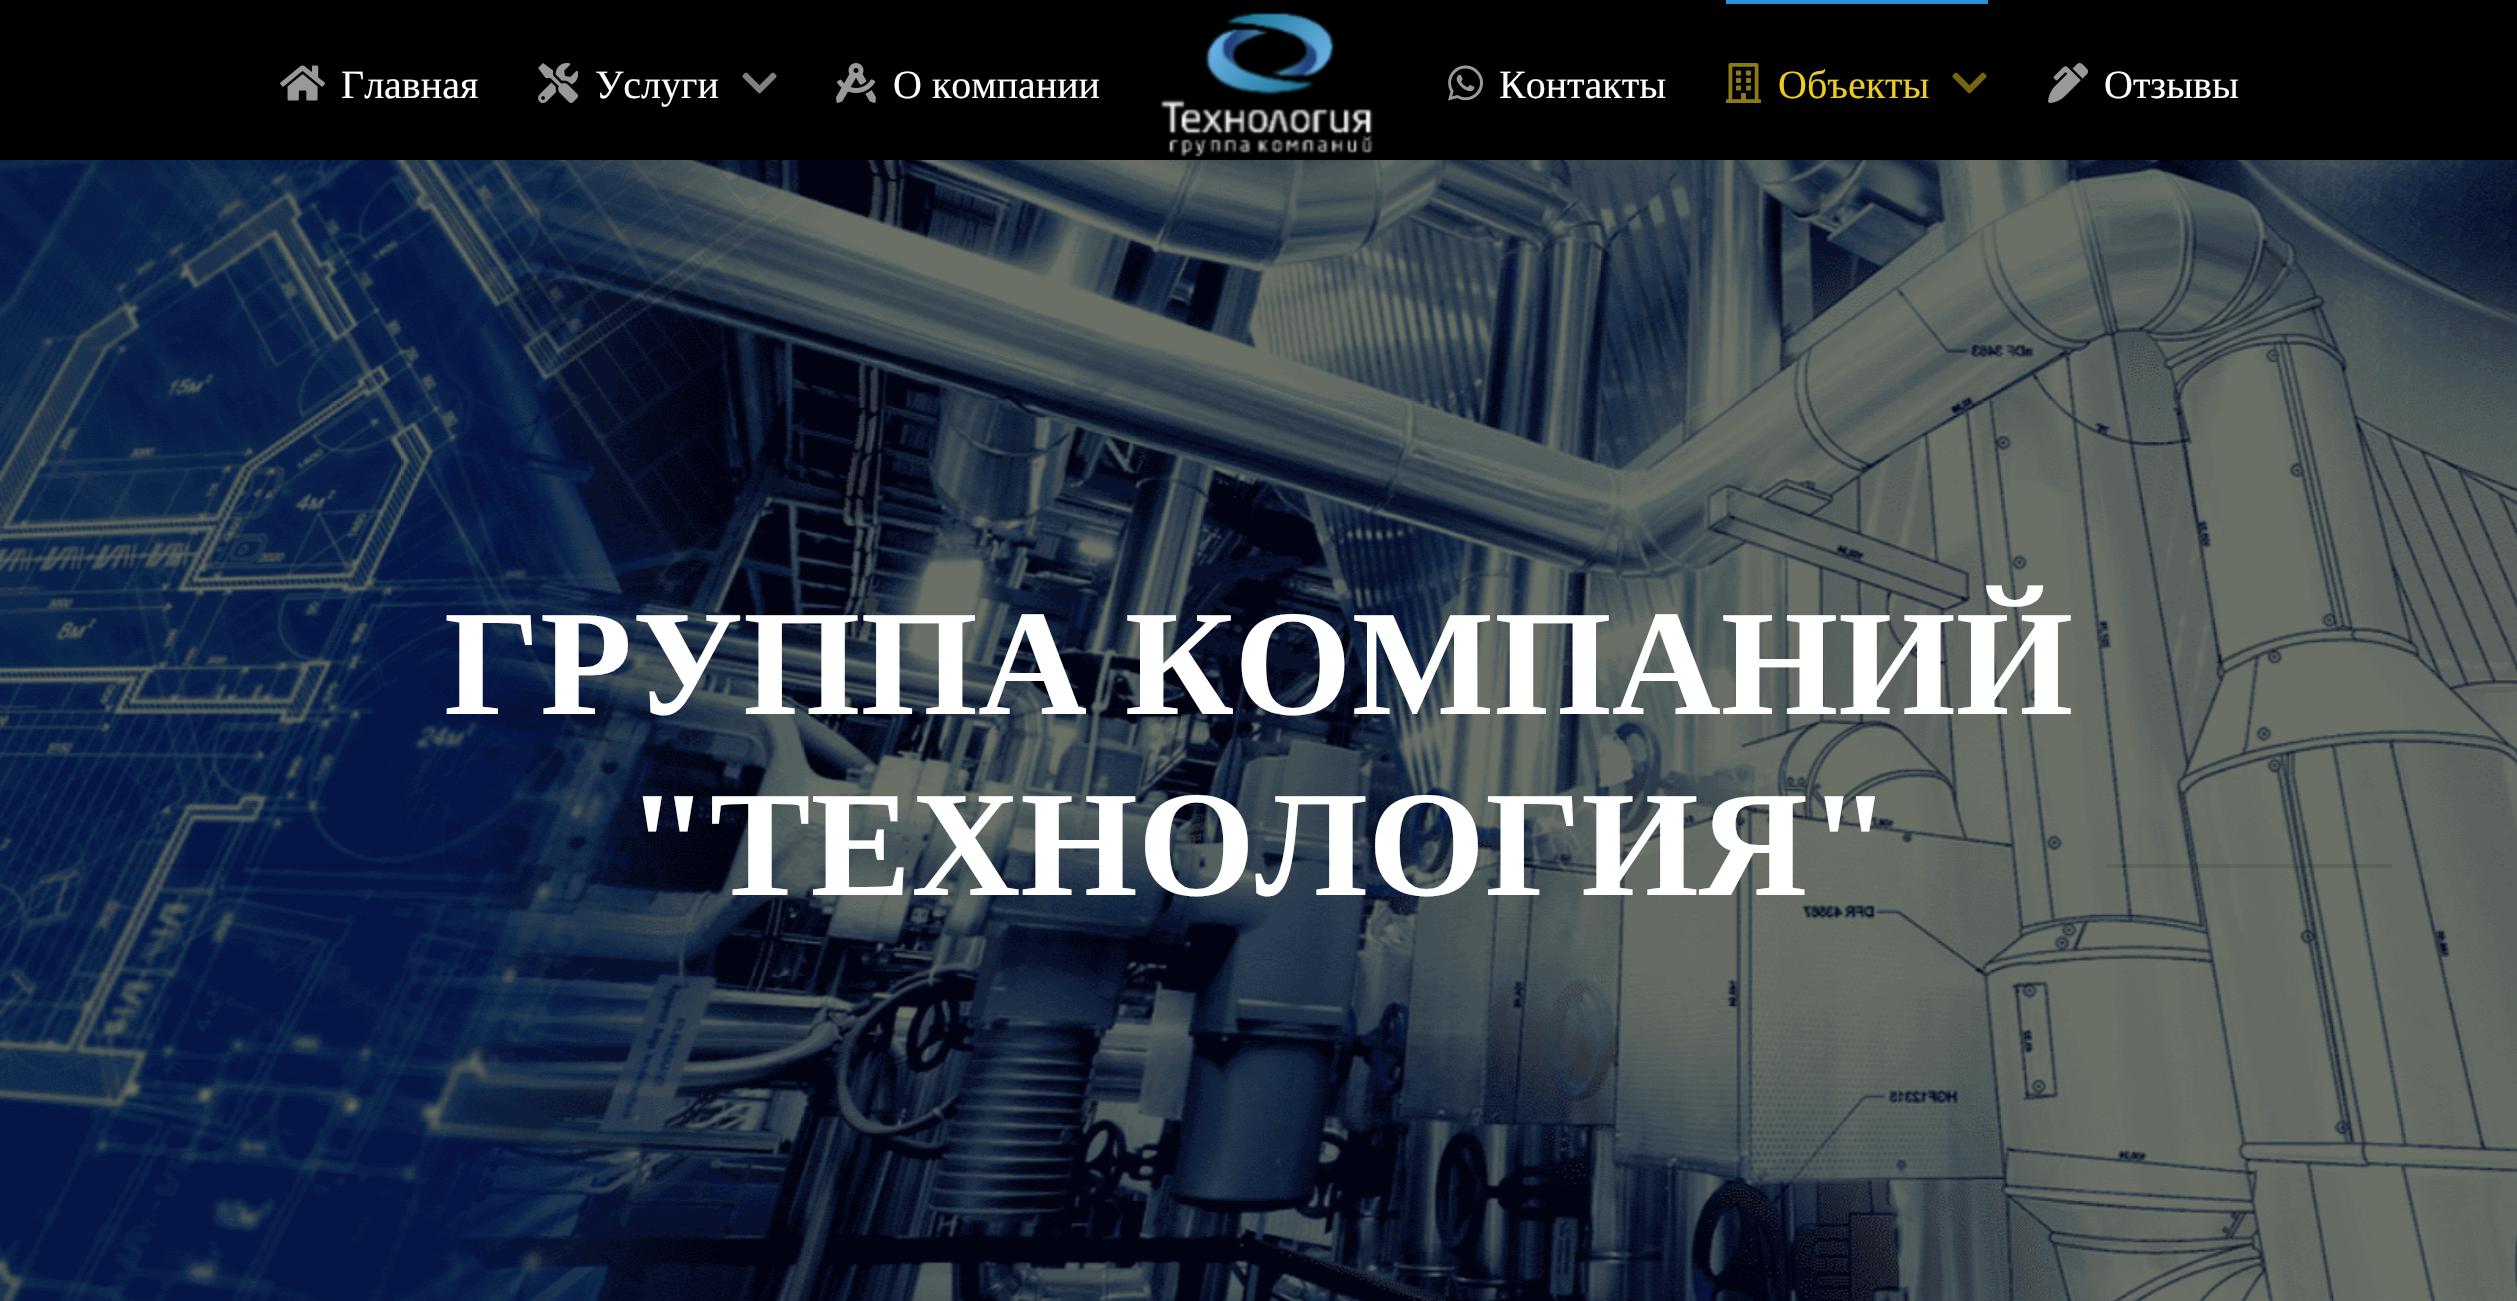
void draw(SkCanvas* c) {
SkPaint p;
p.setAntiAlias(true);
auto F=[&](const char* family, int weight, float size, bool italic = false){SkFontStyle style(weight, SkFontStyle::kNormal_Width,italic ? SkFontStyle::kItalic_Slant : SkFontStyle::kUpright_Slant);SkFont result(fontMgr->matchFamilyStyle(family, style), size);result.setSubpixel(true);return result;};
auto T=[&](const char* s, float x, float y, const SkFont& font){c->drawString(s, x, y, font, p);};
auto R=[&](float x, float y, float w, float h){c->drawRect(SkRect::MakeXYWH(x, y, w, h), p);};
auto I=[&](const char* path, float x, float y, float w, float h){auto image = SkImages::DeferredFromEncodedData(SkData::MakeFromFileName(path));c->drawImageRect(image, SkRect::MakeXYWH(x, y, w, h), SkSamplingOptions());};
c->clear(0xffffffff);
p.setColor(0xff000000);
R(0,0,2517,160);
I("1.png",280,65,45,36);
auto f1 = F("Liberation Serif",400,40);
p.setColor(0xffffffff);
T("Главная",341,98,f1);
I("2.png",538,63,41,40);
T("Услуги",595,98,f1);
I("3.png",742,72,35,22);
I("4.png",836,63,40,40);
T("О компании",893,98,f1);
I("5.png",1160,12,213,145);
I("6.png",1448,65,35,36);
T("Контакты",1499,98,f1);
p.setColor(0xff2991d6);
R(1726,0,262,4);
I("7.png",1726,63,35,40);
p.setColor(0xffebcd1e);
T("Объекты",1778,98,f1);
I("8.png",1952,72,35,22);
I("9.png",2048,63,40,40);
p.setColor(0xffffffff);
T("Отзывы",2104,98,f1);
I("10.png",0,160,2517,1141);
p.setColor(0x1a000000);
R(128,864,284,4);
auto f2 = F("Liberation Serif",700,151);
p.setColor(0xffffffff);
T("ГРУППА КОМПАНИЙ",444,714,f2);
T("\"ТЕХНОЛОГИЯ\"",626,895,f2);
p.setColor(0x1a000000);
R(2106,864,286,4);
}
